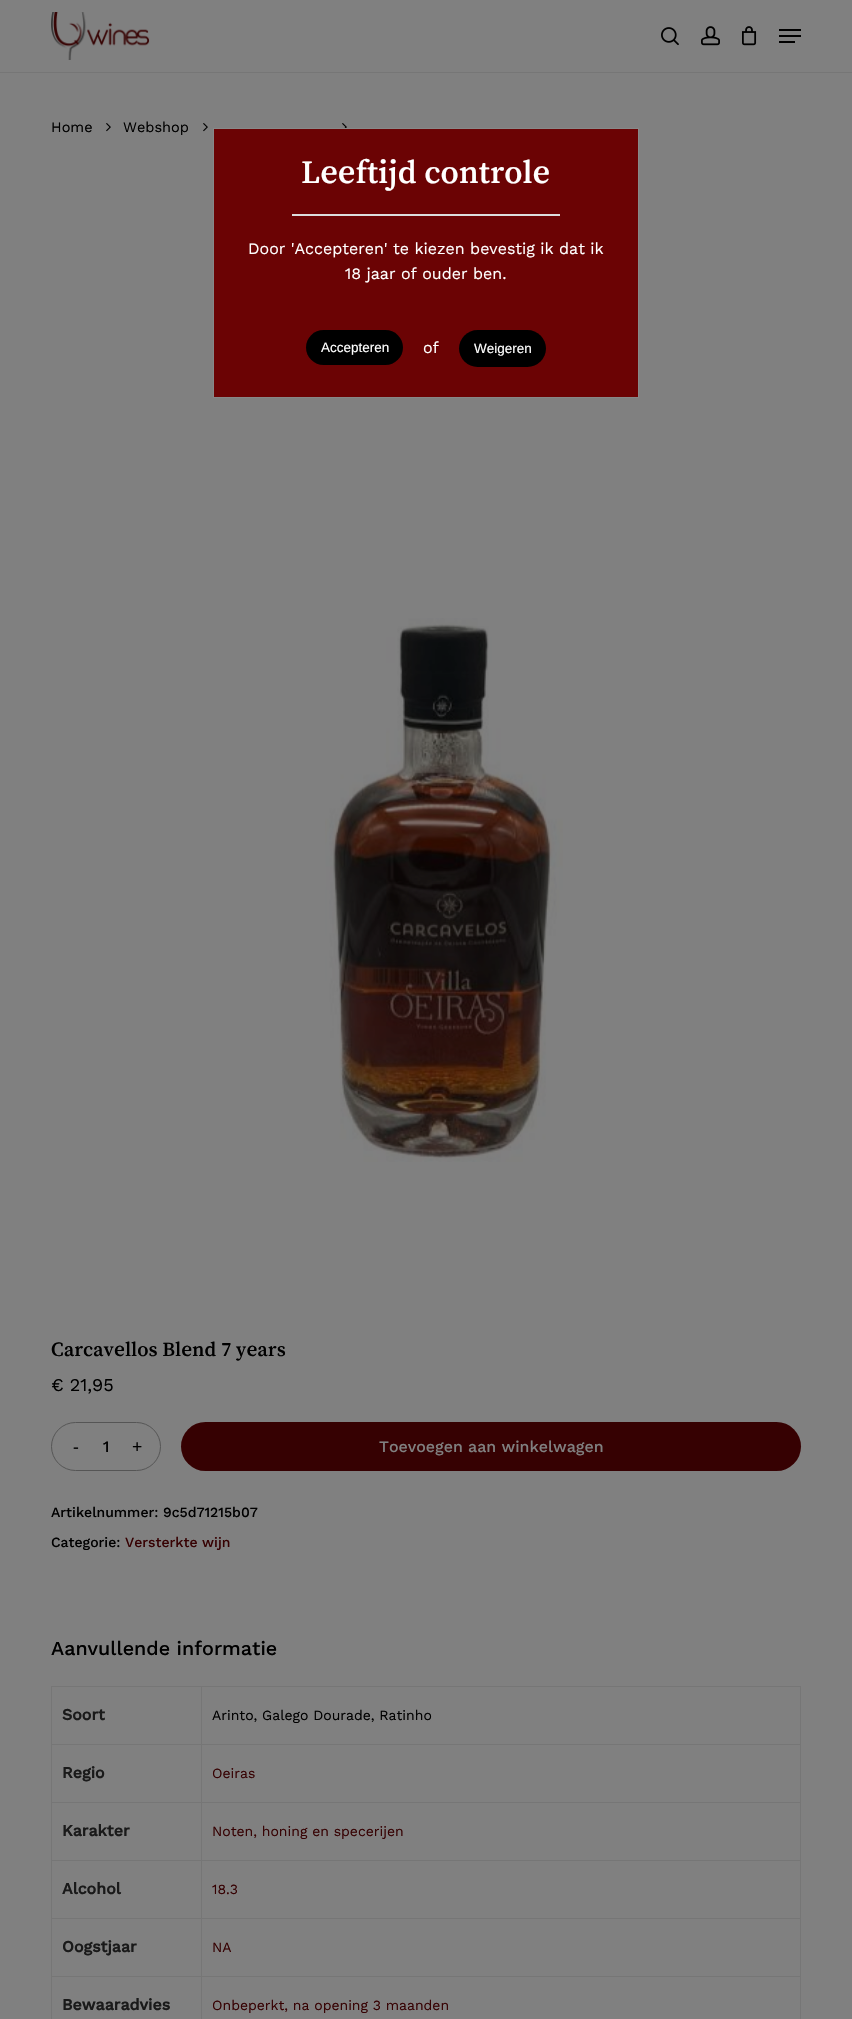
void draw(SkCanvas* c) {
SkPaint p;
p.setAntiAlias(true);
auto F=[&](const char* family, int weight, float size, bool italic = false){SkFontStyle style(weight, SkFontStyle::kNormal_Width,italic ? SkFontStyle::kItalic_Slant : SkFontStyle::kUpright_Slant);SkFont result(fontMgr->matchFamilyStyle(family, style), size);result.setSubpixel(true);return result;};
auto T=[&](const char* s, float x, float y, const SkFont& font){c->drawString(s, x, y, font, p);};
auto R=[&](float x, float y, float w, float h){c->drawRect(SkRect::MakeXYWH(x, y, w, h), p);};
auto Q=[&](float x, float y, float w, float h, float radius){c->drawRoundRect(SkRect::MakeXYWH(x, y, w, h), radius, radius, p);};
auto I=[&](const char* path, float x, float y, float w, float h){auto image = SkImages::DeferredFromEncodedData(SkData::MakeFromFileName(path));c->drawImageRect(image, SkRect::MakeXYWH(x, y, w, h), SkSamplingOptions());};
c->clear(0xff808080);
p.setColor(0xff767676);
R(0,72,852,1);
I("1.png",51,12,99,48);
I("2.png",661,27,18,19);
I("3.png",701,26,19,20);
I("4.png",742,26,15,20);
p.setColor(0xff000000);
R(779,29,22,2);
R(779,41,16,2);
R(779,35,22,2);
auto f1 = F("Work Sans",400,14.5);
T("Home",51,132,f1);
I("5.png",106,123,5,9);
T("Webshop",123,132,f1);
I("5.png",203,123,5,9);
I("6.png",342,123,5,5);
I("7.png",325,618,238,544);
auto f2 = F("Song Myung",400,21);
T("Carcavellos Blend 7 years",51,1356,f2);
auto f3 = F("Work Sans",400,18);
T("€ 21,95",51,1391,f3);
p.setStroke(true);
p.setStrokeWidth(1);
p.setColor(0xff555555);
c->drawRoundRect(SkRect::MakeXYWH(51.5,1422.5,109,48),24,24,p);
auto f4 = F("Open Sans",400,18);
p.setStroke(false);
p.setColor(0xff000000);
T("-",73,1453,f4);
auto f5 = F("Work Sans",500,16);
T("1",103,1452,f5);
T("+",132,1453,f4);
p.setColor(0xff360102);
Q(181,1422,620,49,24.5);
p.setColor(0xff808080);
T("Toevoegen aan winkelwagen",379,1452,f5);
auto f6 = F("Work Sans",500,14);
p.setColor(0xff000000);
T("Artikelnummer: 9c5d71215b07",51,1517,f6);
T("Categorie:",51,1547,f6);
p.setColor(0xff360102);
T("Versterkte wijn",125,1547,f6);
auto f7 = F("Work Sans",500,19.75);
p.setColor(0xff000000);
T("Aanvullende informatie",51,1655,f7);
p.setColor(0xff767676);
R(51,1686,750,1);
R(201,1976,1,43);
R(800,1686,1,333);
R(201,1976,600,1);
R(201,1918,1,59);
R(201,1918,600,1);
R(201,1860,1,59);
R(201,1860,600,1);
R(201,1802,1,59);
R(201,1802,600,1);
R(201,1744,1,59);
R(201,1744,600,1);
R(201,1686,1,59);
R(51,1976,1,43);
R(51,1976,151,1);
R(51,1918,1,59);
R(51,1918,151,1);
R(51,1860,1,59);
R(51,1860,151,1);
R(51,1802,1,59);
R(51,1802,151,1);
R(51,1744,1,59);
R(51,1744,151,1);
R(51,1686,1,59);
auto f8 = F("Work Sans",700,16);
p.setColor(0xff1a1a1a);
T("Soort",62,1720,f8);
auto f9 = F("Work Sans",400,14);
p.setColor(0xff000000);
T("Arinto, Galego Dourade, Ratinho",212,1720,f9);
p.setColor(0xff1a1a1a);
T("Regio",62,1778,f8);
p.setColor(0xff360102);
T("Oeiras",212,1778,f9);
p.setColor(0xff1a1a1a);
T("Karakter",62,1836,f8);
p.setColor(0xff360102);
T("Noten, honing en specerijen",212,1836,f9);
p.setColor(0xff1a1a1a);
T("Alcohol",62,1894,f8);
p.setColor(0xff360102);
T("18.3",212,1894,f9);
p.setColor(0xff1a1a1a);
T("Oogstjaar",62,1952,f8);
p.setColor(0xff360102);
T("NA",212,1952,f9);
p.setColor(0xff1a1a1a);
T("Bewaaradvies",62,2010,f8);
p.setColor(0xff360102);
T("Onbeperkt, na opening 3 maanden",212,2010,f9);
p.setColor(0xff6b0304);
c->drawRect(SkRect::MakeXYWH(213.5,128.5,425,269),p);
p.setStroke(true);
p.setColor(0xff888888);
c->drawRect(SkRect::MakeXYWH(213.5,128.5,425,269),p);
auto f10 = F("Song Myung",400,34);
p.setStroke(false);
p.setColor(0xffffffff);
T("Leeftijd controle",301,183,f10);
p.setColor(0xffdddddd);
R(292,214,268,2);
auto f11 = F("Work Sans",400,16);
p.setColor(0xffffffff);
T("Door 'Accepteren' te kiezen bevestig ik dat ik",248,254,f11);
T("18 jaar of ouder ben.",345,279,f11);
p.setColor(0xff000000);
Q(306,330,97,35,17.5);
auto f12 = F("Liberation Sans",400,13.5);
p.setColor(0xffffffff);
T("Accepteren",321,352,f12);
T("of",423,353,f11);
p.setColor(0xff000000);
Q(459,330,87,37,18.5);
p.setColor(0xffffffff);
T("Weigeren",474,353,f12);
}
